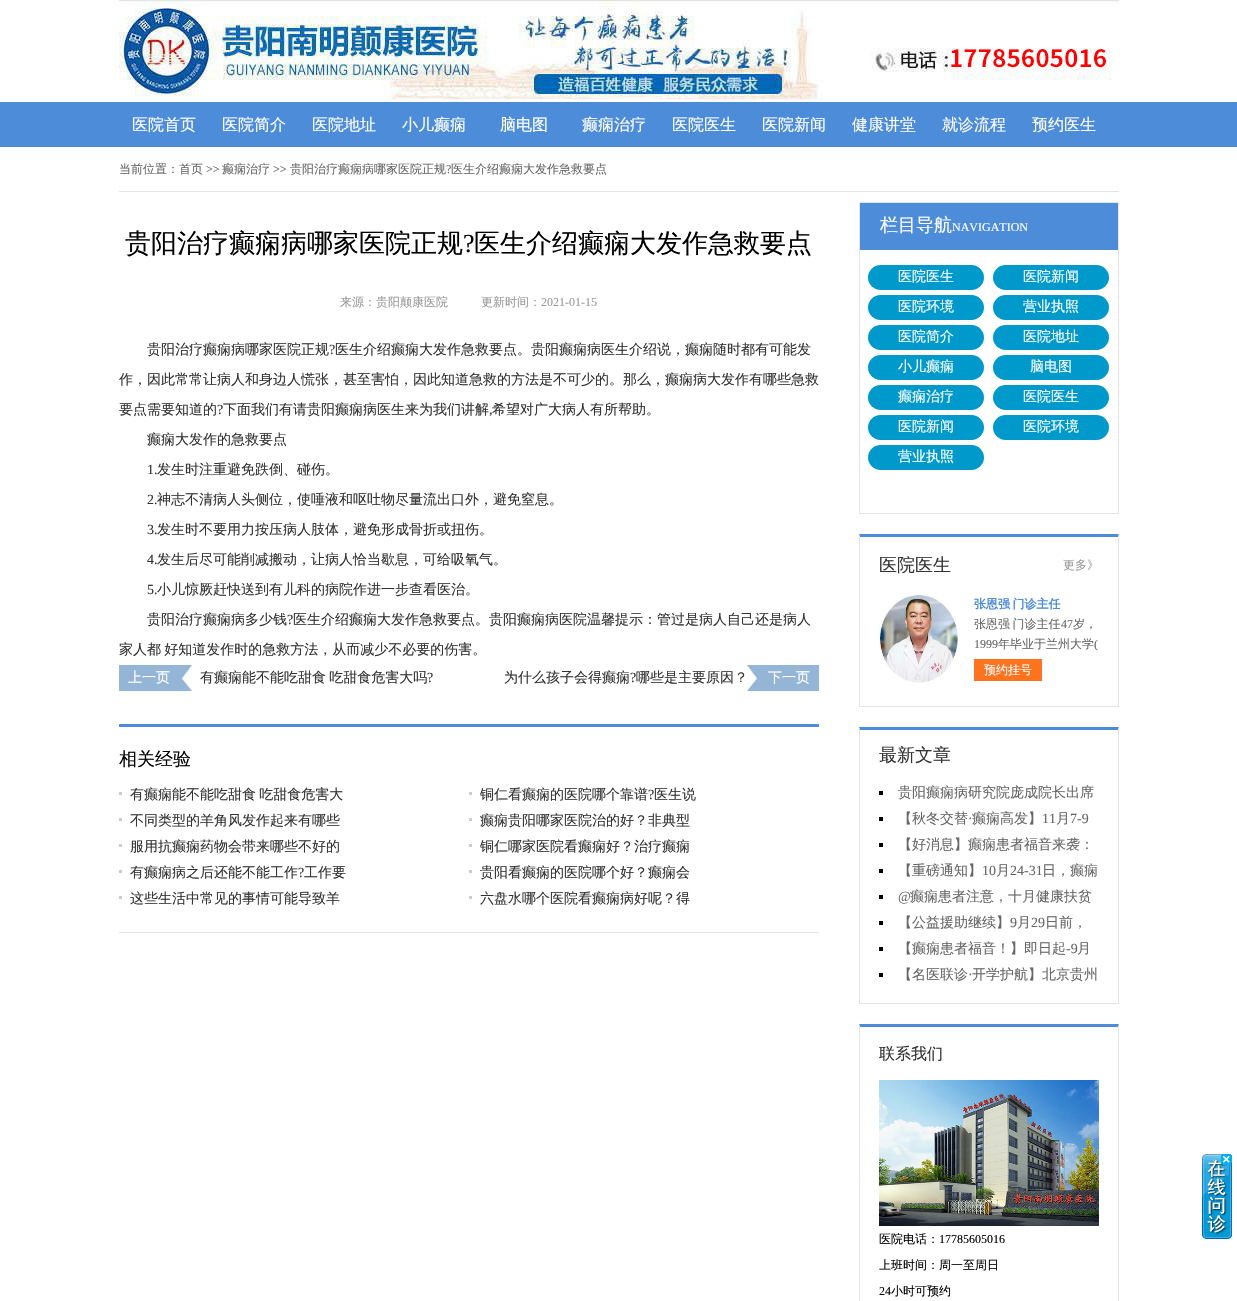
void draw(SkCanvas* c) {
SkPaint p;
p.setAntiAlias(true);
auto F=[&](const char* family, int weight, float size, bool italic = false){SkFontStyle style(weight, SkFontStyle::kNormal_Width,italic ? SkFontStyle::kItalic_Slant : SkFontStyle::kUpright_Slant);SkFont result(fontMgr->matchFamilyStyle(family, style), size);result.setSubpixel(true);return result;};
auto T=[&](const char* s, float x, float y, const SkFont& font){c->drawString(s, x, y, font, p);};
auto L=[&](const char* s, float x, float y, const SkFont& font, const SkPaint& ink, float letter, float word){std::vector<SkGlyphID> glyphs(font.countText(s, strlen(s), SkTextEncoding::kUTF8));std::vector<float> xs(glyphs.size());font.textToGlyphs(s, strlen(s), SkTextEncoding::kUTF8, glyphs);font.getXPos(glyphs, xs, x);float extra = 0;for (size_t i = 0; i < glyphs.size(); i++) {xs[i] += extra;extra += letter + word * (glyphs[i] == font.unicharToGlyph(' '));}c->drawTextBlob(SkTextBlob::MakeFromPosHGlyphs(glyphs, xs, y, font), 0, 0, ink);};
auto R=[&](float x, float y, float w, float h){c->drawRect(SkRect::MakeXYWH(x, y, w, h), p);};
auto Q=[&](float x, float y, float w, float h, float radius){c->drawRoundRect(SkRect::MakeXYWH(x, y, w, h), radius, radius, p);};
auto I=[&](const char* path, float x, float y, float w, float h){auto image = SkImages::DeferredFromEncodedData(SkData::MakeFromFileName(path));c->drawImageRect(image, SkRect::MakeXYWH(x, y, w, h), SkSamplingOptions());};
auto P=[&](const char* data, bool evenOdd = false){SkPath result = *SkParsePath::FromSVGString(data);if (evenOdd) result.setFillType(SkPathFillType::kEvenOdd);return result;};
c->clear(0xffffffff);
I("1.png",119,0,1000,100);
p.setColor(0xff4c8cd9);
R(0,102,1237,45);
auto f1 = F("WenQuanYi Zen Hei",500,16);
p.setColor(0xffffffff);
T("医院首页",132,130,f1);
T("医院简介",222,130,f1);
T("医院地址",312,130,f1);
T("小儿癫痫",402,130,f1);
T("脑电图",500,130,f1);
T("癫痫治疗",582,130,f1);
T("医院医生",672,130,f1);
T("医院新闻",762,130,f1);
T("健康讲堂",852,130,f1);
T("就诊流程",942,130,f1);
T("预约医生",1032,130,f1);
p.setColor(0xffe4e4e4);
R(119,191,1000,1);
auto f2 = F("WenQuanYi Zen Hei",500,12);
p.setColor(0xff666666);
T("当前位置：首页",119,173,f2);
auto f3 = F("Liberation Serif",400,12);
T(">>",206,173,f3);
T("癫痫治疗",222,173,f2);
T(">>",273,173,f3);
T("贵阳治疗癫痫病哪家医院正规",290,173,f2);
T("?",446,173,f3);
T("医生介绍癫痫大发作急救要点",451,173,f2);
p.setColor(0xff4c8cd9);
R(119,724,700,3);
auto f4 = F("WenQuanYi Zen Hei",500,26);
p.setColor(0xff000000);
T("贵阳治疗癫痫病哪家医院正规",125,252,f4);
auto f5 = F("Liberation Serif",400,26);
T("?",463,252,f5);
T("医生介绍癫痫大发作急救要点",474,252,f4);
p.setColor(0xff999999);
T("来源：贵阳颠康医院",340,306,f2);
T("更新时间：",481,306,f2);
T("2021-01-15",541,306,f3);
auto f6 = F("WenQuanYi Zen Hei",500,14);
p.setColor(0xff333333);
T("贵阳治疗癫痫病哪家医院正规",147,354,f6);
auto f7 = F("Liberation Serif",400,14);
T("?",329,354,f7);
T("医生介绍癫痫大发作急救要点。贵阳癫痫病医生介绍说，癫痫随时都有可能发",335,354,f6);
T("作，因此常常让病人和身边人慌张，甚至害怕，因此知道急救的方法是不可少的。那么，癫痫病大发作有哪些急救",119,384,f6);
T("要点需要知道的",119,414,f6);
T("?",217,414,f7);
T("下面我们有请贵阳癫痫病医生来为我们讲解",223,414,f6);
T(",",489,414,f7);
T("希望对广大病人有所帮助。",492,414,f6);
T("癫痫大发作的急救要点",147,444,f6);
T("1.",147,474,f7);
T("发生时注重避免跌倒、碰伤。",157,474,f6);
T("2.",147,504,f7);
T("神志不清病人头侧位，使唾液和呕吐物尽量流出口外，避免窒息。",157,504,f6);
T("3.",147,534,f7);
T("发生时不要用力按压病人肢体，避免形成骨折或扭伤。",157,534,f6);
T("4.",147,564,f7);
T("发生后尽可能削减搬动，让病人恰当歇息，可给吸氧气。",157,564,f6);
T("5.",147,594,f7);
T("小儿惊厥赶快送到有儿科的病院作进一步查看医治。",157,594,f6);
T("贵阳治疗癫痫病多少钱",147,624,f6);
T("?",287,624,f7);
T("医生介绍癫痫大发作急救要点。贵阳癫痫病医院温馨提示：管过是病人自己还是病人",293,624,f6);
L("家人都 好知道发作时的急救方法，从而减少不必要的伤害。",119,654,f6,p,0,-1);
I("2.png",119,665,73,26);
p.setColor(0xffffffff);
T("上一页",128,682,f6);
p.setColor(0xff333333);
L("有癫痫能不能吃甜食 吃甜食危害大吗",200,682,f6,p,0,-1);
T("?",427,682,f7);
I("3.png",747,665,72,26);
T("为什么孩子会得癫痫",504,682,f6);
T("?",630,682,f7);
T("哪些是主要原因？",636,682,f6);
p.setColor(0xffffffff);
T("下一页",768,682,f6);
p.setColor(0xffe4e4e4);
R(119,932,700,1);
auto f8 = F("WenQuanYi Zen Hei",500,18);
p.setColor(0xff000000);
T("相关经验",119,765,f8);
p.setColor(0xffcccccc);
R(119,792,3,3);
p.setColor(0xff333333);
L("有癫痫能不能吃甜食 吃甜食危害大",130,799,f6,p,0,-1);
p.setColor(0xffcccccc);
R(469,792,3,3);
p.setColor(0xff333333);
T("铜仁看癫痫的医院哪个靠谱",480,799,f6);
T("?",648,799,f7);
T("医生说",654,799,f6);
p.setColor(0xffcccccc);
R(119,818,3,3);
p.setColor(0xff333333);
T("不同类型的羊角风发作起来有哪些",130,825,f6);
p.setColor(0xffcccccc);
R(469,818,3,3);
p.setColor(0xff333333);
T("癫痫贵阳哪家医院治的好？非典型",480,825,f6);
p.setColor(0xffcccccc);
R(119,844,3,3);
p.setColor(0xff333333);
T("服用抗癫痫药物会带来哪些不好的",130,851,f6);
p.setColor(0xffcccccc);
R(469,844,3,3);
p.setColor(0xff333333);
T("铜仁哪家医院看癫痫好？治疗癫痫",480,851,f6);
p.setColor(0xffcccccc);
R(119,870,3,3);
p.setColor(0xff333333);
T("有癫痫病之后还能不能工作",130,877,f6);
T("?",298,877,f7);
T("工作要",304,877,f6);
p.setColor(0xffcccccc);
R(469,870,3,3);
p.setColor(0xff333333);
T("贵阳看癫痫的医院哪个好？癫痫会",480,877,f6);
p.setColor(0xffcccccc);
R(119,896,3,3);
p.setColor(0xff333333);
T("这些生活中常见的事情可能导致羊",130,903,f6);
p.setColor(0xffcccccc);
R(469,896,3,3);
p.setColor(0xff333333);
T("六盘水哪个医院看癫痫病好呢？得",480,903,f6);
p.setStroke(true);
p.setStrokeWidth(1);
p.setColor(0xffe4e4e4);
c->drawRect(SkRect::MakeXYWH(859.5,202.5,259,311),p);
p.setStroke(false);
p.setColor(0xff4c8cd9);
R(860,203,258,47);
p.setColor(0xffffffff);
T("栏目导航",880,231,f8);
T("NAVIGATION",952,231,f3);
p.setColor(0xff0099cc);
Q(868,265,116,25,12.5);
p.setColor(0xffffffff);
T("医院医生",898,281,f6);
p.setColor(0xff0099cc);
Q(993,265,116,25,12.5);
p.setColor(0xffffffff);
T("医院新闻",1023,281,f6);
p.setColor(0xff0099cc);
Q(868,295,116,25,12.5);
p.setColor(0xffffffff);
T("医院环境",898,311,f6);
p.setColor(0xff0099cc);
Q(993,295,116,25,12.5);
p.setColor(0xffffffff);
T("营业执照",1023,311,f6);
p.setColor(0xff0099cc);
Q(868,325,116,25,12.5);
p.setColor(0xffffffff);
T("医院简介",898,341,f6);
p.setColor(0xff0099cc);
Q(993,325,116,25,12.5);
p.setColor(0xffffffff);
T("医院地址",1023,341,f6);
p.setColor(0xff0099cc);
Q(868,355,116,25,12.5);
p.setColor(0xffffffff);
T("小儿癫痫",898,371,f6);
p.setColor(0xff0099cc);
Q(993,355,116,25,12.5);
p.setColor(0xffffffff);
T("脑电图",1030,371,f6);
p.setColor(0xff0099cc);
Q(868,385,116,25,12.5);
p.setColor(0xffffffff);
T("癫痫治疗",898,401,f6);
p.setColor(0xff0099cc);
Q(993,385,116,25,12.5);
p.setColor(0xffffffff);
T("医院医生",1023,401,f6);
p.setColor(0xff0099cc);
Q(868,415,116,25,12.5);
p.setColor(0xffffffff);
T("医院新闻",898,431,f6);
p.setColor(0xff0099cc);
Q(993,415,116,25,12.5);
p.setColor(0xffffffff);
T("医院环境",1023,431,f6);
p.setColor(0xff0099cc);
Q(868,445,116,25,12.5);
p.setColor(0xffffffff);
T("营业执照",898,461,f6);
p.setColor(0xff4c8cd9);
c->drawPath(P("M859 534h260l-1 3h-258z"),p);
p.setColor(0xffe4e4e4);
c->drawPath(P("M1119 534v173l-1-1v-169z"),p);
R(859,706,260,1);
c->drawPath(P("M859 707v-173l1 3v169z"),p);
p.setColor(0xff333333);
T("医院医生",879,571,f8);
p.setColor(0xff999999);
T("更多》",1063,569,f2);
I("4.png",879,594,80,89);
auto f9 = F("WenQuanYi Zen Hei",700,12);
p.setColor(0xff4c8cd9);
L("张恩强 门诊主任",974,608,f9,p,0,-1);
p.setColor(0xff666666);
L("张恩强 门诊主任",974,628,f2,p,0,-1);
T("47",1061,628,f3);
T("岁，",1073,628,f2);
T("1999",974,648,f3);
T("年毕业于兰州大学",998,648,f2);
T("(",1094,648,f3);
p.setColor(0xffff731e);
R(974,659,68,22);
p.setColor(0xffffffff);
T("预约挂号",984,674,f2);
p.setColor(0xff4c8cd9);
c->drawPath(P("M859 727h260l-1 3h-258z"),p);
p.setColor(0xffe4e4e4);
c->drawPath(P("M1119 727v277l-1-1v-273z"),p);
R(859,1003,260,1);
c->drawPath(P("M859 1004v-277l1 3v273z"),p);
p.setColor(0xff333333);
T("最新文章",879,761,f8);
p.setColor(0xff000000);
R(879,791,4,4);
p.setColor(0xff666666);
T("贵阳癫痫病研究院庞成院长出席",898,797,f6);
p.setColor(0xff000000);
R(879,817,4,4);
p.setColor(0xff666666);
T("【秋冬交替",898,823,f6);
T("·",968,823,f7);
T("癫痫高发】",972,823,f6);
T("11",1042,823,f7);
T("月",1056,823,f6);
T("7-9",1070,823,f7);
p.setColor(0xff000000);
R(879,843,4,4);
p.setColor(0xff666666);
T("【好消息】癫痫患者福音来袭：",898,849,f6);
p.setColor(0xff000000);
R(879,869,4,4);
p.setColor(0xff666666);
T("【重磅通知】",898,875,f6);
T("10",982,875,f7);
T("月",996,875,f6);
T("24-31",1010,875,f7);
T("日，癫痫",1042,875,f6);
p.setColor(0xff000000);
R(879,895,4,4);
p.setColor(0xff666666);
T("@",898,901,f7);
T("癫痫患者注意，十月健康扶贫",910,901,f6);
p.setColor(0xff000000);
R(879,921,4,4);
p.setColor(0xff666666);
T("【公益援助继续】",898,927,f6);
T("9",1010,927,f7);
T("月",1017,927,f6);
T("29",1031,927,f7);
T("日前，",1045,927,f6);
p.setColor(0xff000000);
R(879,947,4,4);
p.setColor(0xff666666);
T("【癫痫患者福音！】即日起",898,953,f6);
T("-9",1066,953,f7);
T("月",1077,953,f6);
p.setColor(0xff000000);
R(879,973,4,4);
p.setColor(0xff666666);
T("【名医联诊",898,979,f6);
T("·",968,979,f7);
T("开学护航】北京贵州",972,979,f6);
p.setColor(0xff4c8cd9);
c->drawPath(P("M859 1024h260l-1 3h-258z"),p);
p.setColor(0xffe4e4e4);
c->drawPath(P("M1119 1024v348l-1-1v-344z"),p);
c->drawPath(P("M859 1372v-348l1 3v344z"),p);
p.setColor(0xff333333);
T("联系我们",879,1059,f1);
I("5.png",879,1080,220,146);
p.setColor(0xff000000);
T("医院电话：",879,1243,f2);
T("17785605016",939,1243,f3);
T("上班时间：周一至周日",879,1269,f2);
T("24",879,1295,f3);
T("小时可预约",891,1295,f2);
I("6.png",1202,1154,30,85);
I("7.png",1221,1154,11,11);
}
